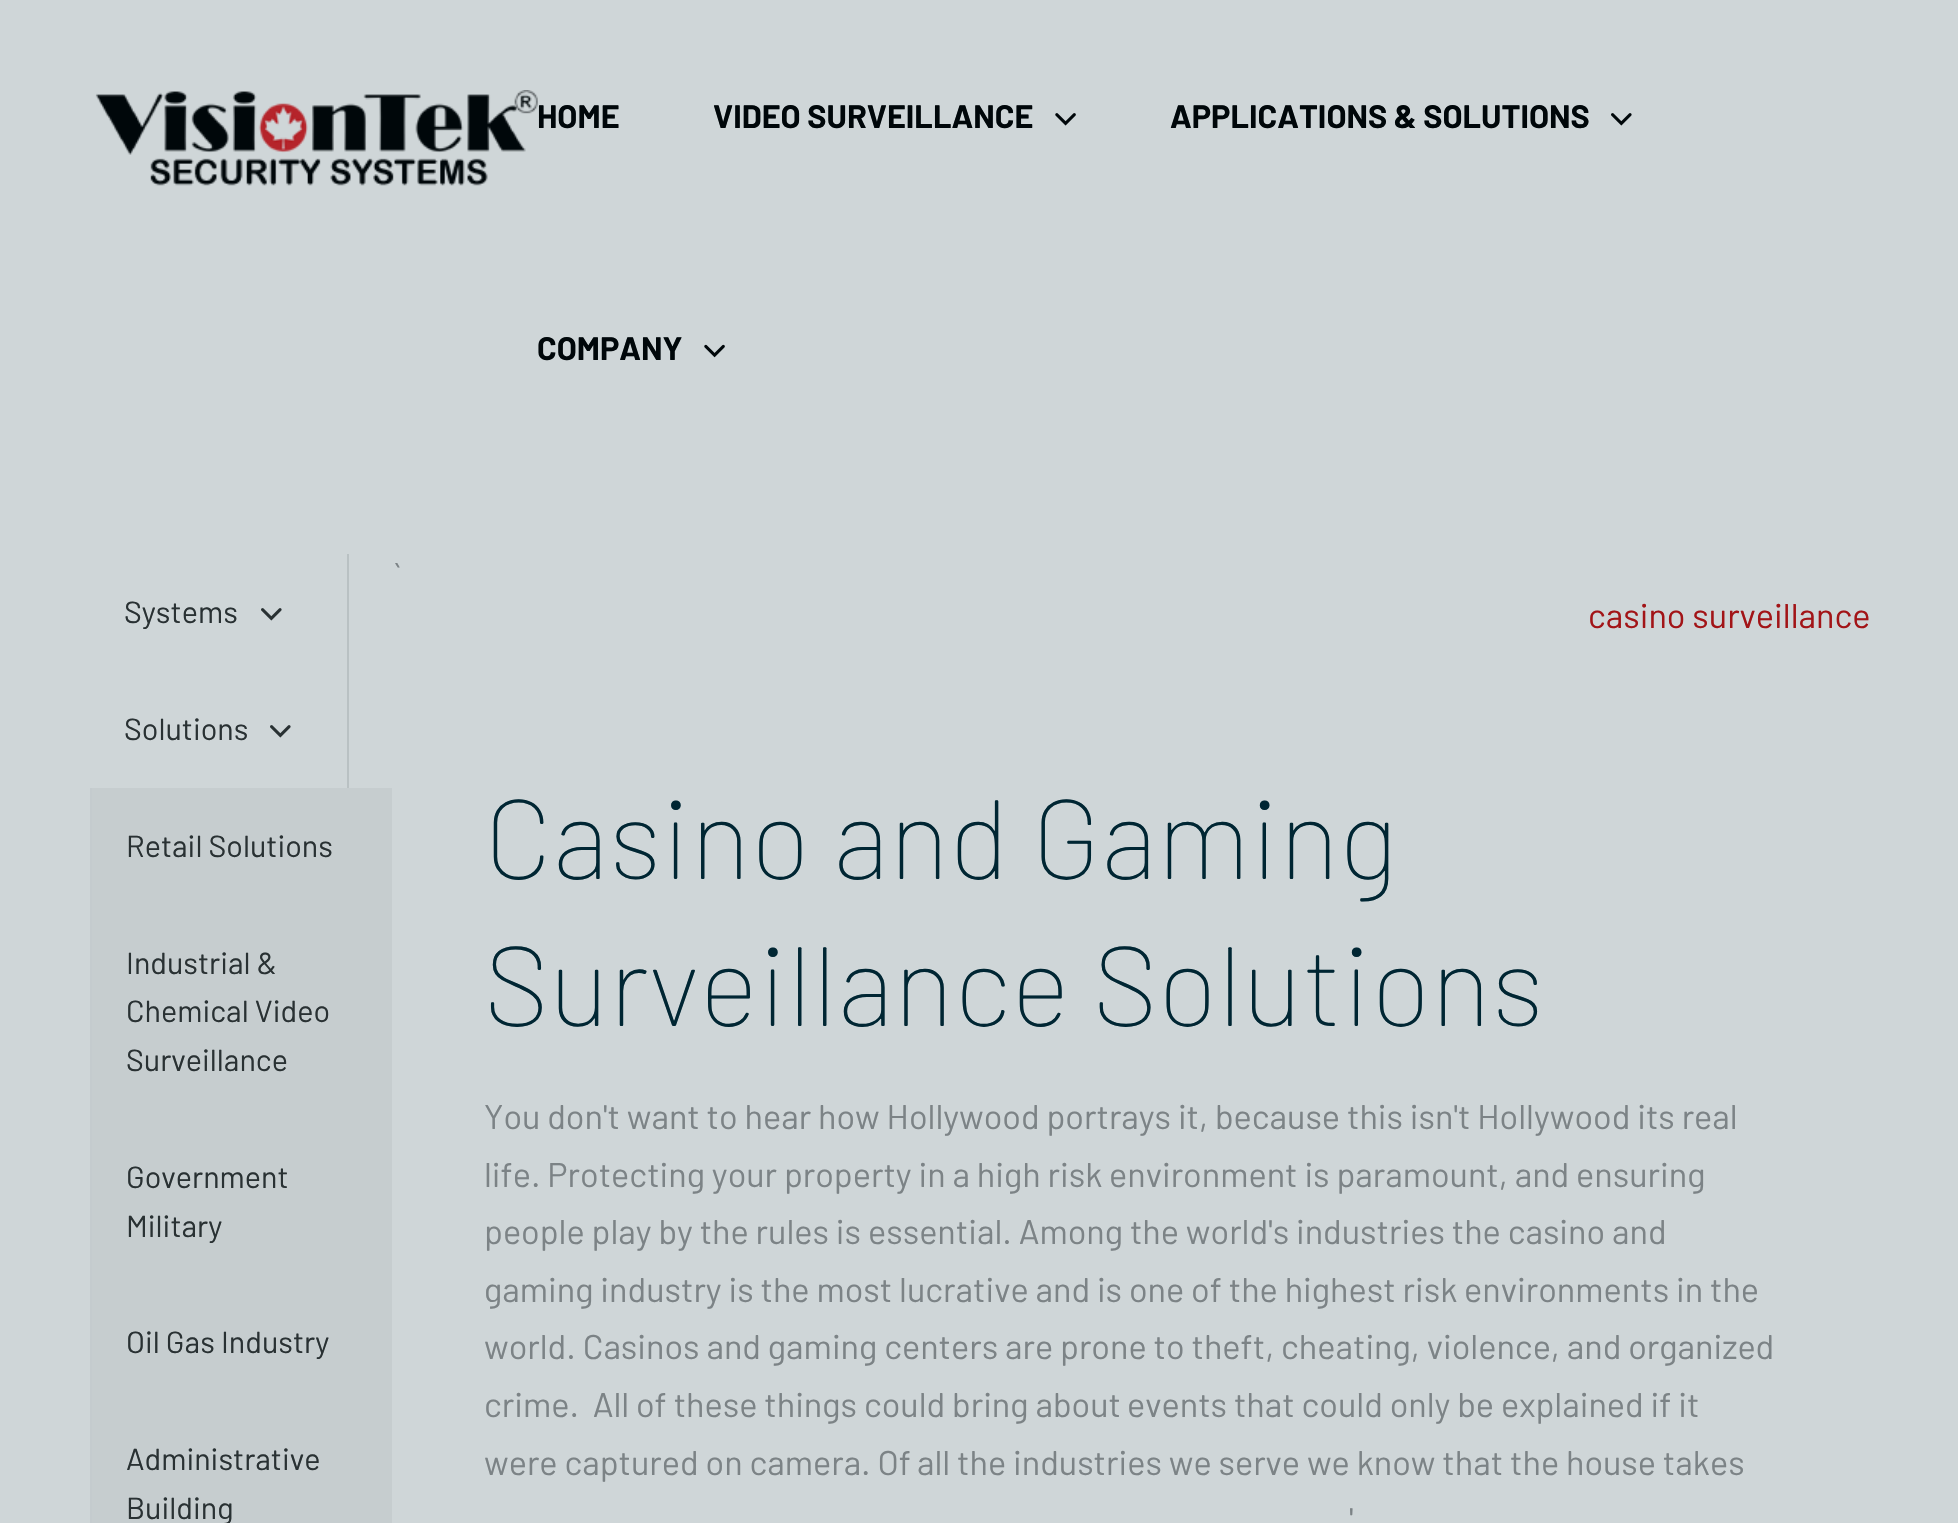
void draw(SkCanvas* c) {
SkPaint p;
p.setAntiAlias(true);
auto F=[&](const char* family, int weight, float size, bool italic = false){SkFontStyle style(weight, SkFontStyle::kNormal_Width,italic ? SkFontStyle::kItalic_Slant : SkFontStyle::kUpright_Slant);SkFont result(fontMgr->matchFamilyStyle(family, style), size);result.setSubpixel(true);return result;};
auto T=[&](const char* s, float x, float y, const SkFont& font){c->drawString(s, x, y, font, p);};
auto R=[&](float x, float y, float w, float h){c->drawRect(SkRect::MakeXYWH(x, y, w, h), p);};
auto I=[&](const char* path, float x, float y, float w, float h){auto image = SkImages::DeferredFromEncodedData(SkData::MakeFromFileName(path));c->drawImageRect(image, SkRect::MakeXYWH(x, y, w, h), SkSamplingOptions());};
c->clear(0xffcfd6d8);
I("1.png",95,90,443,96);
auto f1 = F("Barlow",700,32.4);
p.setColor(0xff00070a);
T("HOME",537,128,f1);
T("VIDEO SURVEILLANCE",713,128,f1);
I("2.png",1055,113,21,13);
T("APPLICATIONS & SOLUTIONS",1170,128,f1);
I("3.png",1611,113,21,13);
T("COMPANY",537,360,f1);
I("4.png",704,344,21,14);
p.setColor(0xffb9c1c3);
R(347,554,2,234);
auto f2 = F("Barlow",400,30.5);
p.setColor(0xff293133);
T("Systems",124,623,f2);
I("5.png",261,608,21,13);
T("Solutions",124,740,f2);
I("5.png",270,725,21,13);
p.setColor(0xffc6cdcf);
R(92,788,300,735);
p.setColor(0xffc4cbce);
R(90,788,2,735);
p.setColor(0xff293133);
T("Retail Solutions",126,857,f2);
T("Industrial &",126,974,f2);
T("Chemical Video",126,1022,f2);
T("Surveillance",126,1071,f2);
T("Government",126,1188,f2);
T("Military",126,1237,f2);
T("Oil Gas Industry",126,1353,f2);
T("Administrative",126,1470,f2);
T("Building",126,1519,f2);
auto f3 = F("Barlow",400,34.2);
p.setColor(0xff7c8386);
T("`",394,587,f3);
p.setColor(0xffa21417);
T("casino surveillance",1588,628,f3);
auto f4 = F("Barlow",100,112.5);
p.setColor(0xff002633);
T("Casino and Gaming",484,879,f4);
T("Surveillance Solutions",484,1026,f4);
p.setColor(0xff7c8386);
T("You don't want to hear how Hollywood portrays it, because this isn't Hollywood its real",484,1129,f3);
T("life. Protecting your property in a high risk",484,1187,f3);
T("environment is paramount, and ensuring",1109,1187,f3);
T("people play by the rules is",484,1244,f3);
T("essential. Among the world's industries the casino and",868,1244,f3);
T("gaming industry is the most lucrative and is one of the highest risk environments in the",484,1302,f3);
T("world. Casinos and gaming centers are prone to theft, cheating, violence, and organized",484,1359,f3);
T("crime.  All of these things could bring about",484,1417,f3);
T("events that could only be explained if it",1127,1417,f3);
T("were captured on camera. Of",484,1475,f3);
T("all the industries we serve we know that the house takes",917,1475,f3);
T("'",1349,1532,f3);
}
